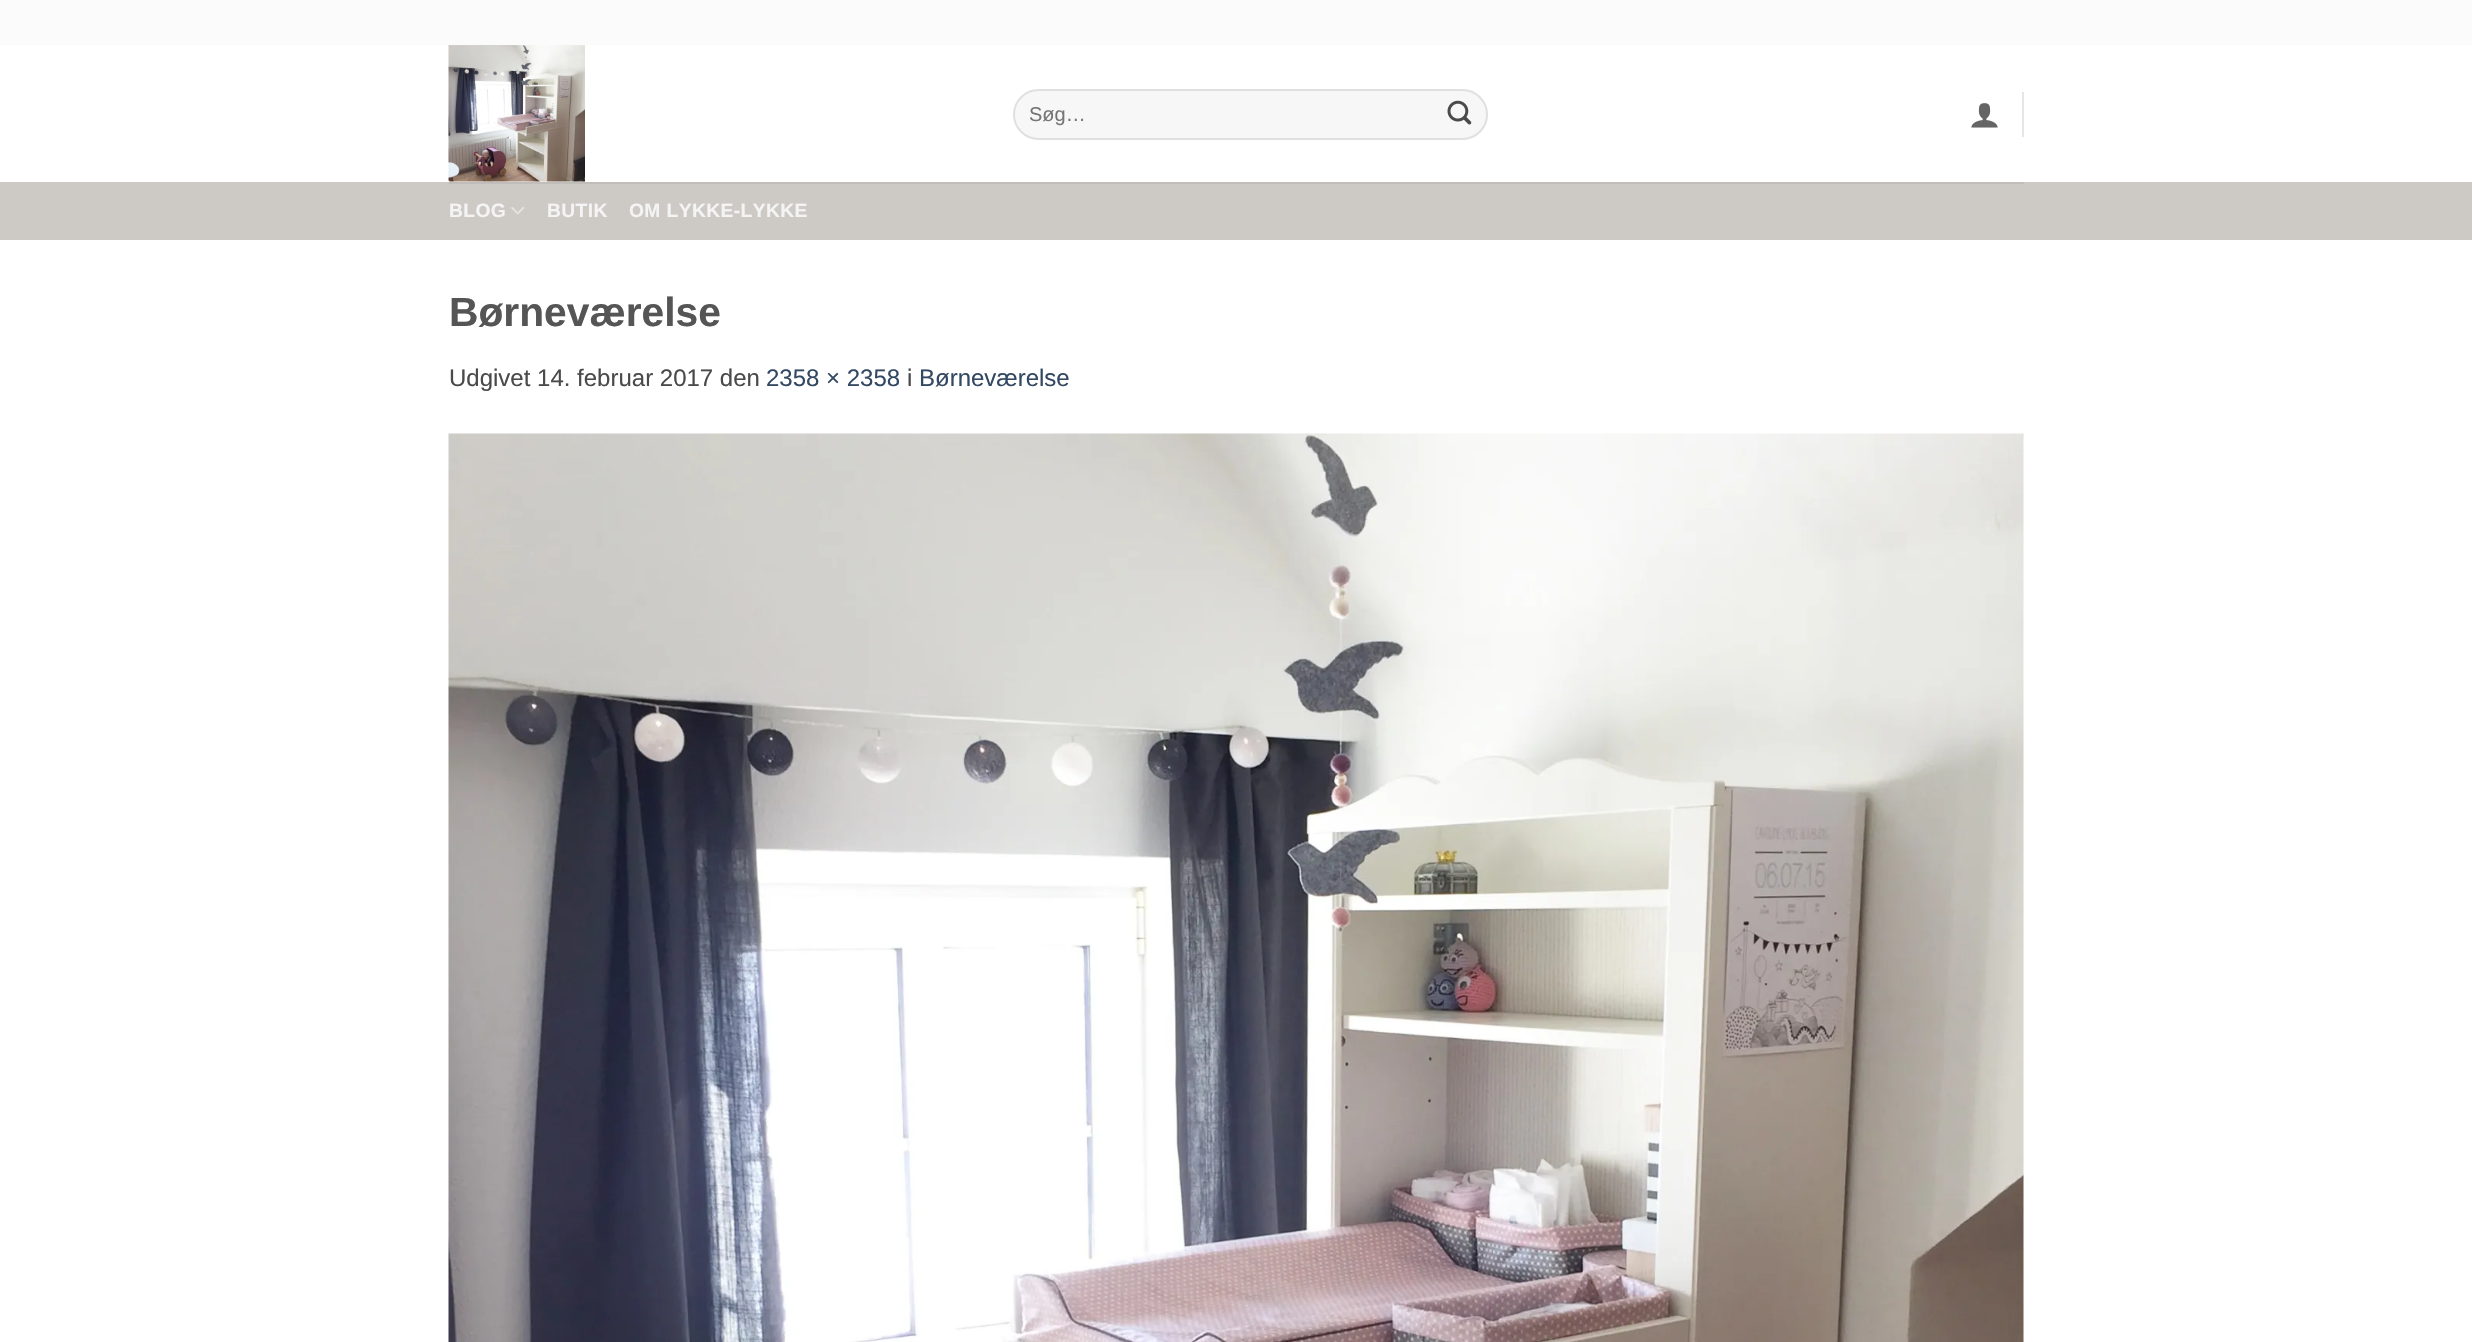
void draw(SkCanvas* c) {
SkPaint p;
p.setAntiAlias(true);
auto F=[&](const char* family, int weight, float size, bool italic = false){SkFontStyle style(weight, SkFontStyle::kNormal_Width,italic ? SkFontStyle::kItalic_Slant : SkFontStyle::kUpright_Slant);SkFont result(fontMgr->matchFamilyStyle(family, style), size);result.setSubpixel(true);return result;};
auto T=[&](const char* s, float x, float y, const SkFont& font){c->drawString(s, x, y, font, p);};
auto L=[&](const char* s, float x, float y, const SkFont& font, const SkPaint& ink, float letter, float word){std::vector<SkGlyphID> glyphs(font.countText(s, strlen(s), SkTextEncoding::kUTF8));std::vector<float> xs(glyphs.size());font.textToGlyphs(s, strlen(s), SkTextEncoding::kUTF8, glyphs);font.getXPos(glyphs, xs, x);float extra = 0;for (size_t i = 0; i < glyphs.size(); i++) {xs[i] += extra;extra += letter + word * (glyphs[i] == font.unicharToGlyph(' '));}c->drawTextBlob(SkTextBlob::MakeFromPosHGlyphs(glyphs, xs, y, font), 0, 0, ink);};
auto R=[&](float x, float y, float w, float h){c->drawRect(SkRect::MakeXYWH(x, y, w, h), p);};
auto Q=[&](float x, float y, float w, float h, float radius){c->drawRoundRect(SkRect::MakeXYWH(x, y, w, h), radius, radius, p);};
auto I=[&](const char* path, float x, float y, float w, float h){auto image = SkImages::DeferredFromEncodedData(SkData::MakeFromFileName(path));c->drawImageRect(image, SkRect::MakeXYWH(x, y, w, h), SkSamplingOptions());};
c->clear(0xffffffff);
p.setColor(0xfffbfbfb);
R(0,0,2472,45);
I("1.png",448,45,137,137);
p.setColor(0xfff7f7f7);
Q(1013,89,475,51,25.5);
p.setStroke(true);
p.setStrokeWidth(2);
p.setColor(0x17000000);
c->drawRoundRect(SkRect::MakeXYWH(1014,90,473,49),24.5,24.5,p);
auto f1 = F("Liberation Sans",400,20);
p.setStroke(false);
p.setColor(0xff757575);
T("Søg…",1029,121,f1);
I("2.png",1447,100,25,25);
I("3.png",1971,103,27,25);
p.setColor(0xffe6e6e6);
R(2022,92,2,45);
p.setColor(0xffcdcac6);
R(0,182,2472,58);
p.setColor(0xffc0bdba);
R(449,182,1575,2);
auto f2 = F("Liberation Sans",700,19.25);
p.setColor(0xfff5f4f4);
L("BLOG",449,217,f2,p,.4,0);
I("4.png",511,207,14,8);
L("BUTIK",547,217,f2,p,.4,0);
L("OM LYKKE-LYKKE",629,217,f2,p,.4,0);
auto f3 = F("Liberation Sans",700,40.75);
p.setColor(0xff555555);
T("Børneværelse",449,326,f3);
auto f4 = F("Liberation Sans",400,24);
p.setColor(0xff4a4a4a);
T("Udgivet 14. februar 2017 den",449,386,f4);
p.setColor(0xff334862);
T("2358 × 2358",766,386,f4);
p.setColor(0xff4a4a4a);
T("i",907,386,f4);
p.setColor(0xff334862);
T("Børneværelse",919,386,f4);
I("5.png",448,433,1576,909);
}
